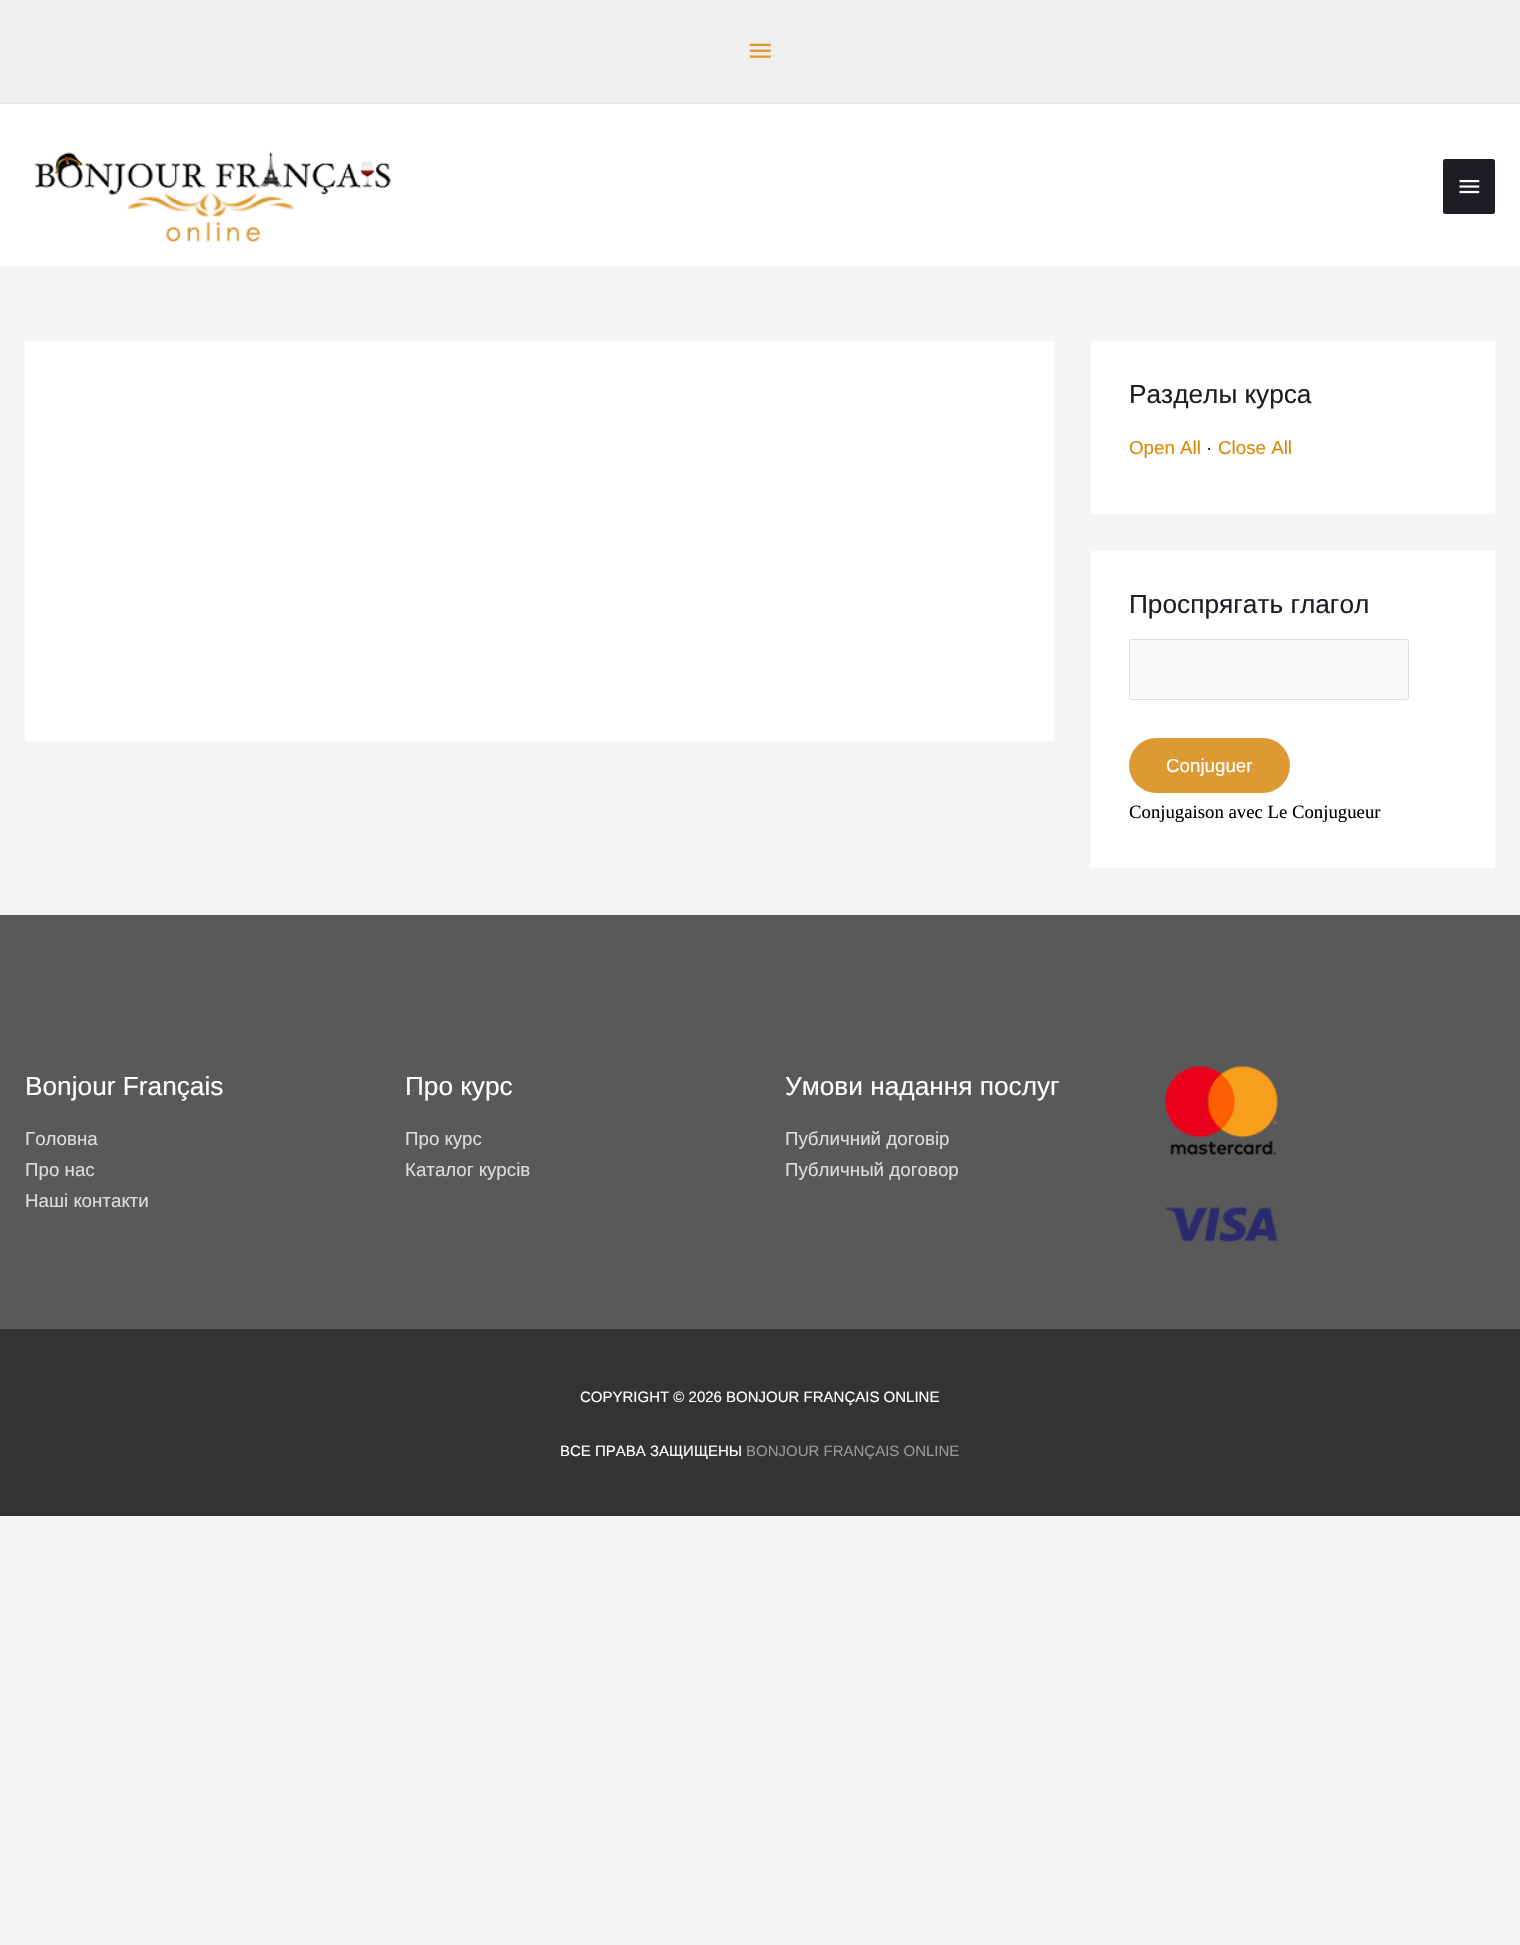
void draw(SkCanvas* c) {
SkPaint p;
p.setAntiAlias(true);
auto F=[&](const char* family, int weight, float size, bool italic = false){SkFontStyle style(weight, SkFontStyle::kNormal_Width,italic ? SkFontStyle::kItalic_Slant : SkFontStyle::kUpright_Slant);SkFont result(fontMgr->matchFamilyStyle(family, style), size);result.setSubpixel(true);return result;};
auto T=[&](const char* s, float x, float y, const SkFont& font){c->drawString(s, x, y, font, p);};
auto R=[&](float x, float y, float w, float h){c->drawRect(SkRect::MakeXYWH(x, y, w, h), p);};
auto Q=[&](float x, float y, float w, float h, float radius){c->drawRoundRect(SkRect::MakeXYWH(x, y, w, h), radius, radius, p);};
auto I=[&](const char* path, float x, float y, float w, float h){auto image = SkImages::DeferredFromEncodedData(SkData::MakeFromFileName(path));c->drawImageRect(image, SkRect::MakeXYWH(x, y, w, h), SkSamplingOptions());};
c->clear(0xfff5f5f5);
p.setColor(0xffefefef);
R(0,0,1520,103);
p.setColor(0xffe5e5e5);
R(0,103,1520,1);
I("1.png",749,43,22,15);
p.setColor(0xffffffff);
R(0,104,1520,162);
I("2.png",33,151,359,91);
p.setColor(0xff1d1d23);
Q(1443,159,52,55,2.5);
I("3.png",1459,180,21,14);
p.setColor(0xffffffff);
R(25,341,1029,400);
R(1091,341,404,173);
auto f1 = F("Liberation Sans",400,26.25);
p.setColor(0xff1d1d23);
T("Разделы курса",1129,403,f1);
auto f2 = F("Liberation Sans",400,18.75);
p.setColor(0xffdb8700);
T("Open All",1129,454,f2);
p.setColor(0xff1d1d23);
T("·",1206,454,f2);
p.setColor(0xffdb8700);
T("Close All",1218,454,f2);
p.setColor(0xffffffff);
R(1091,551,404,317);
p.setColor(0xff1d1d23);
T("Проспрягать глагол",1129,613,f1);
p.setColor(0xfffafafa);
c->drawRoundRect(SkRect::MakeXYWH(1129.5,639.5,279,60),2,2,p);
p.setStroke(true);
p.setStrokeWidth(1);
p.setColor(0xffdddddd);
c->drawRoundRect(SkRect::MakeXYWH(1129.5,639.5,279,60),2,2,p);
p.setStroke(false);
p.setColor(0xffdd9933);
Q(1129,738,161,55,27.5);
p.setColor(0xffffffff);
T("Conjuguer",1166,772,f2);
auto f3 = F("Liberation Serif",400,18.75);
p.setColor(0xff000000);
T("Conjugaison avec Le Conjugueur",1129,818,f3);
p.setColor(0xff595959);
R(0,915,1520,414);
p.setColor(0xffffffff);
T("Bonjour Français",25,1095,f1);
p.setColor(0xffdddddd);
T("Головна",25,1145,f2);
T("Про нас",25,1176,f2);
T("Наші контакти",25,1207,f2);
p.setColor(0xffffffff);
T("Про курс",405,1095,f1);
p.setColor(0xffdddddd);
T("Про курс",405,1145,f2);
T("Каталог курсів",405,1176,f2);
p.setColor(0xffffffff);
T("Умови надання послуг",785,1095,f1);
p.setColor(0xffdddddd);
T("Публичний договір",785,1145,f2);
T("Публичный договор",785,1176,f2);
I("4.png",1165,1066,113,89);
I("5.png",1165,1207,113,35);
p.setColor(0xff333333);
R(0,1329,1520,187);
auto f4 = F("Liberation Sans",400,15);
p.setColor(0xffffffff);
T("COPYRIGHT © 2026 BONJOUR FRANÇAIS ONLINE",580,1402,f4);
T("ВСЕ ПРАВА ЗАЩИЩЕНЫ",560,1456,f4);
p.setColor(0xff999999);
T("BONJOUR FRANÇAIS ONLINE",746,1456,f4);
}
